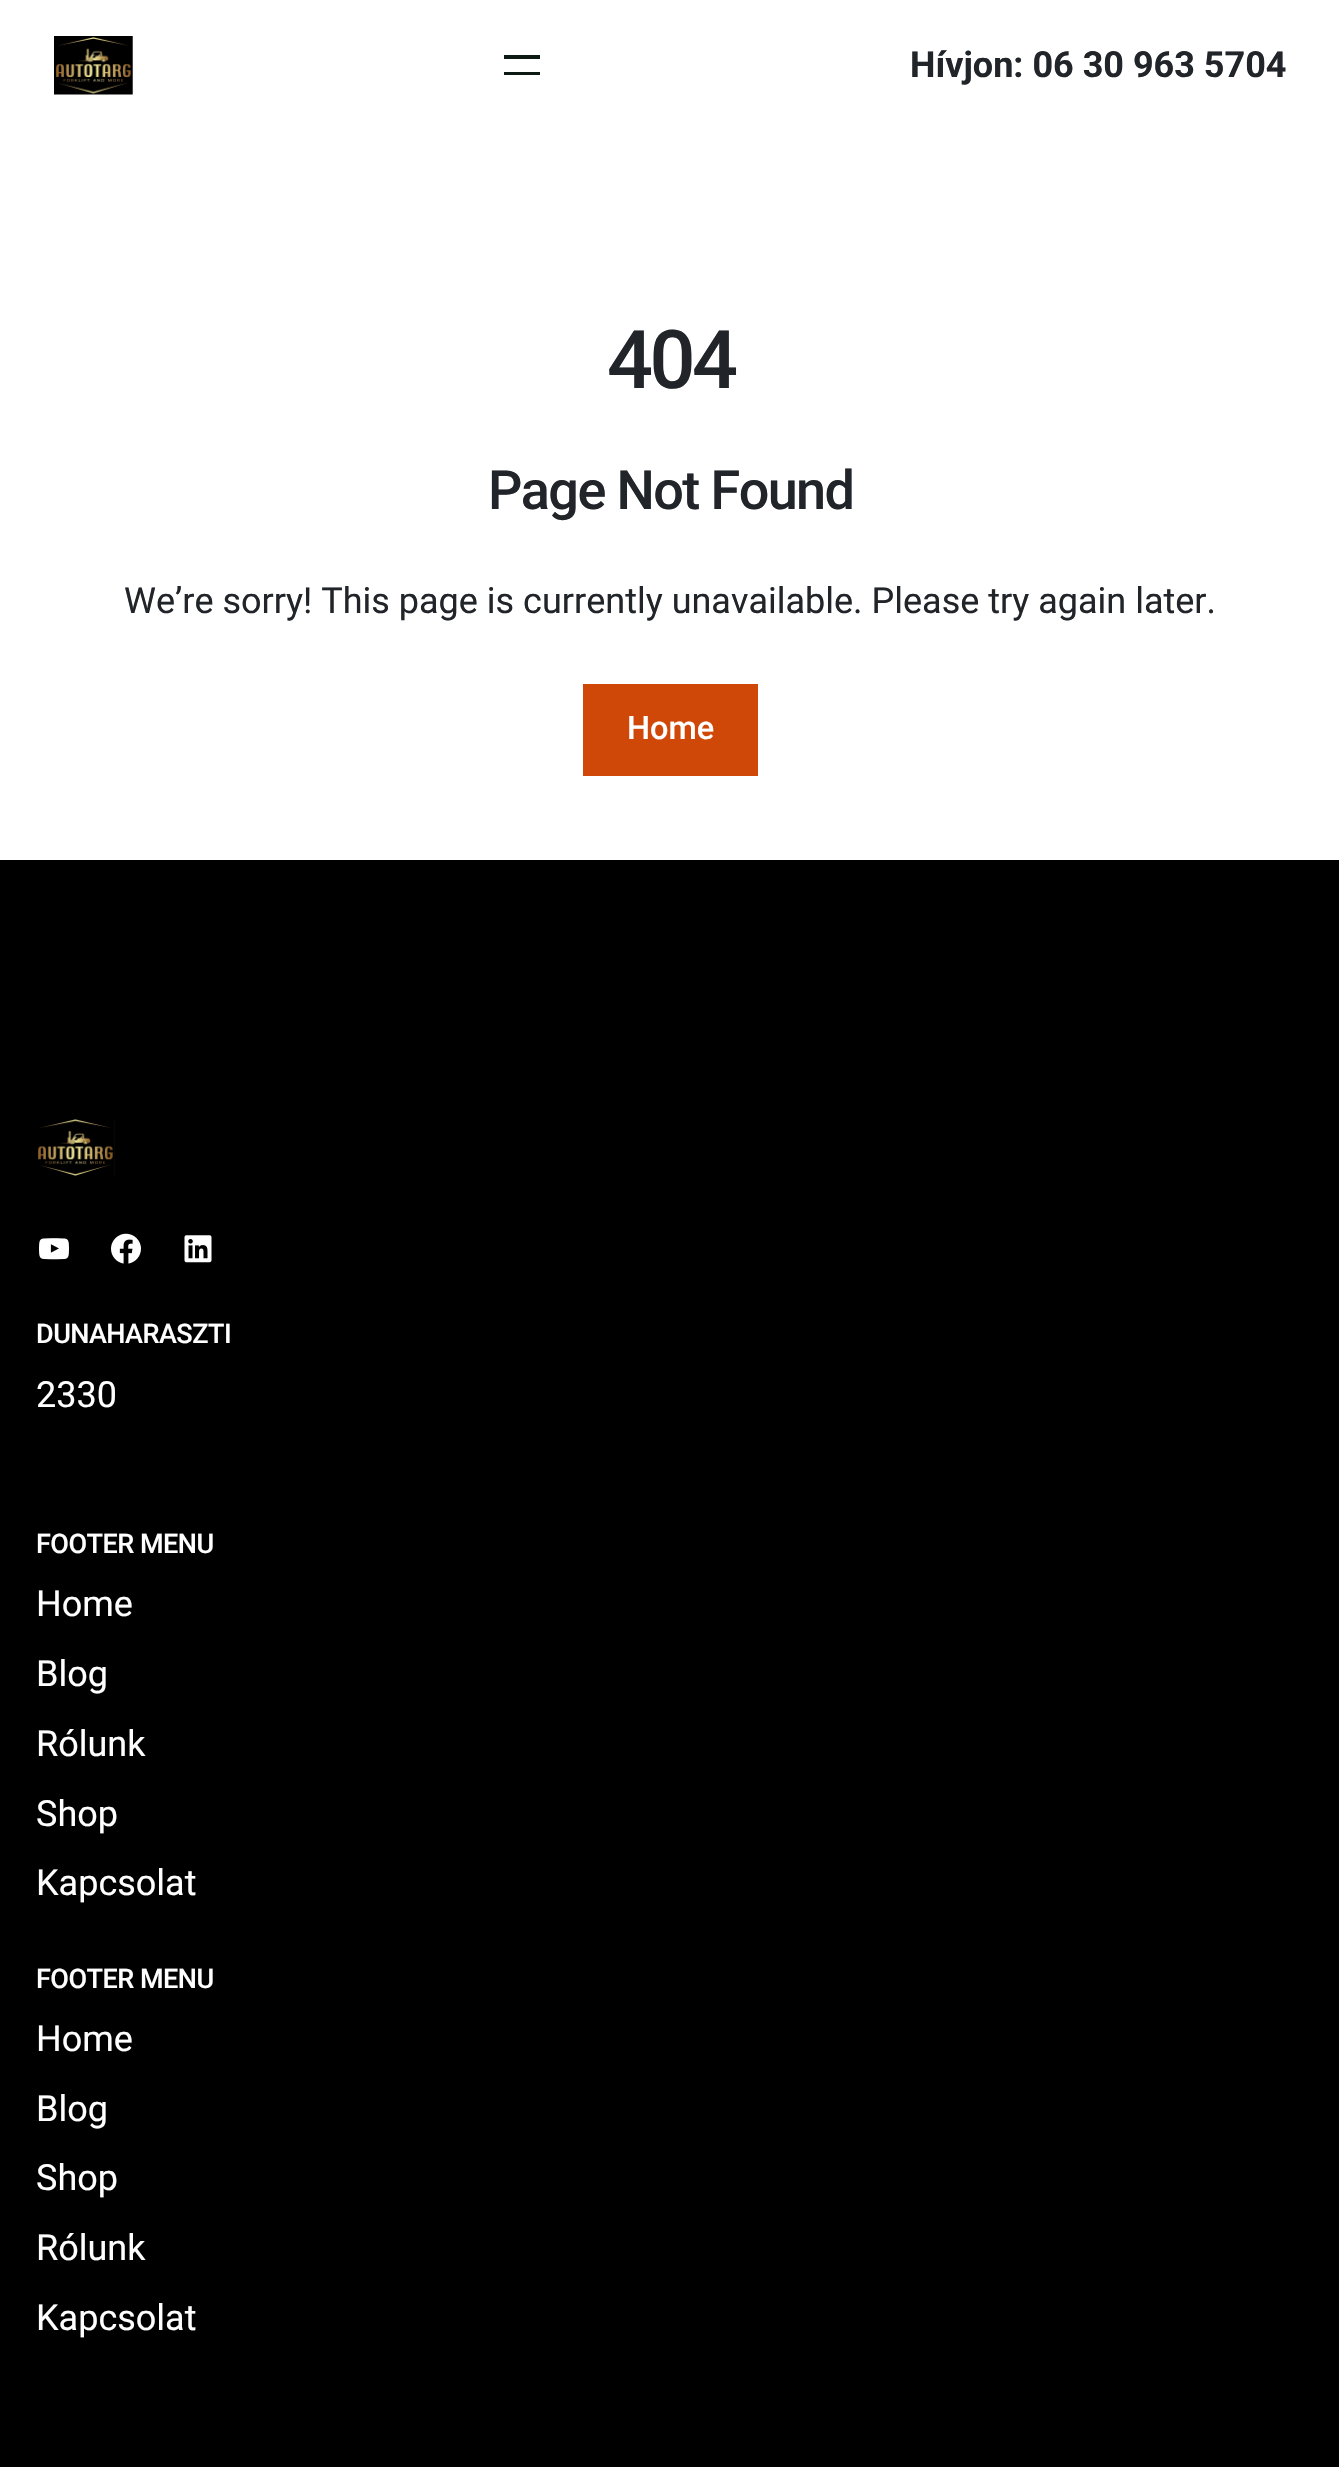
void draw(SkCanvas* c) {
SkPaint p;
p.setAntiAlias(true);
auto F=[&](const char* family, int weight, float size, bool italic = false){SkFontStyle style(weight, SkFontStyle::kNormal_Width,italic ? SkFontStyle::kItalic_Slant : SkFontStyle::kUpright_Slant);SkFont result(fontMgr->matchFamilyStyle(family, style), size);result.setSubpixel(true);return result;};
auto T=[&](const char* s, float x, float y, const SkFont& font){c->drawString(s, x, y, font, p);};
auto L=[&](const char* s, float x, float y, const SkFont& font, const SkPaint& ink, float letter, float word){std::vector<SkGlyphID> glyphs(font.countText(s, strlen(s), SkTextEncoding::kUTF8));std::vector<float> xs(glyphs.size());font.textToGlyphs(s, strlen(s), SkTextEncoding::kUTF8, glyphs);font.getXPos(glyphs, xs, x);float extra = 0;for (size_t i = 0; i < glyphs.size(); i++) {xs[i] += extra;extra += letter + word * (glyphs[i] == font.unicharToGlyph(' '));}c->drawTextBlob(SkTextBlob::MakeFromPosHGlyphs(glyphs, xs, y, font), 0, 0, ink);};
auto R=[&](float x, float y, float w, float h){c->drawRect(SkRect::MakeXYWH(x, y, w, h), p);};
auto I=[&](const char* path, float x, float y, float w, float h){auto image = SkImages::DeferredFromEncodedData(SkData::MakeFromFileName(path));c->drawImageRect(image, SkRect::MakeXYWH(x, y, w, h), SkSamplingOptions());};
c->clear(0xffffffff);
I("1.png",54,36,79,59);
p.setColor(0xff0c1a13);
R(504,55,36,4);
R(504,72,36,3);
auto f1 = F("Roboto",700,36);
p.setColor(0xff212529);
T("Hívjon: 06 30 963 5704",910,77,f1);
auto f2 = F("Roboto",500,81);
L("404",607,388,f2,p,-3.5,0);
auto f3 = F("Roboto",500,54);
L("Page Not Found",488,509,f3,p,-1.6,0);
auto f4 = F("Roboto",400,36);
T("We’re sorry! This page is currently unavailable. Please try again later.",124,613,f4);
p.setColor(0xffd04808);
R(583,684,175,92);
auto f5 = F("Roboto",500,32.5);
p.setColor(0xffffffff);
T("Home",627,739,f5);
p.setColor(0xff000000);
R(0,860,1339,1607);
I("2.png",38,1119,77,57);
I("3.png",39,1238,30,22);
I("4.png",111,1233,30,31);
I("5.png",184,1235,28,28);
auto f6 = F("Roboto",500,27);
p.setColor(0xffffffff);
L("DUNAHARASZTI",36,1343,f6,p,-.5,0);
T("2330",36,1407,f4);
L("FOOTER MENU",36,1553,f6,p,-.5,0);
T("Home",36,1616,f4);
T("Blog",36,1686,f4);
T("Rólunk",36,1756,f4);
T("Shop",36,1826,f4);
T("Kapcsolat",36,1895,f4);
L("FOOTER MENU",36,1988,f6,p,-.5,0);
T("Home",36,2051,f4);
T("Blog",36,2121,f4);
T("Shop",36,2190,f4);
T("Rólunk",36,2260,f4);
T("Kapcsolat",36,2330,f4);
}
